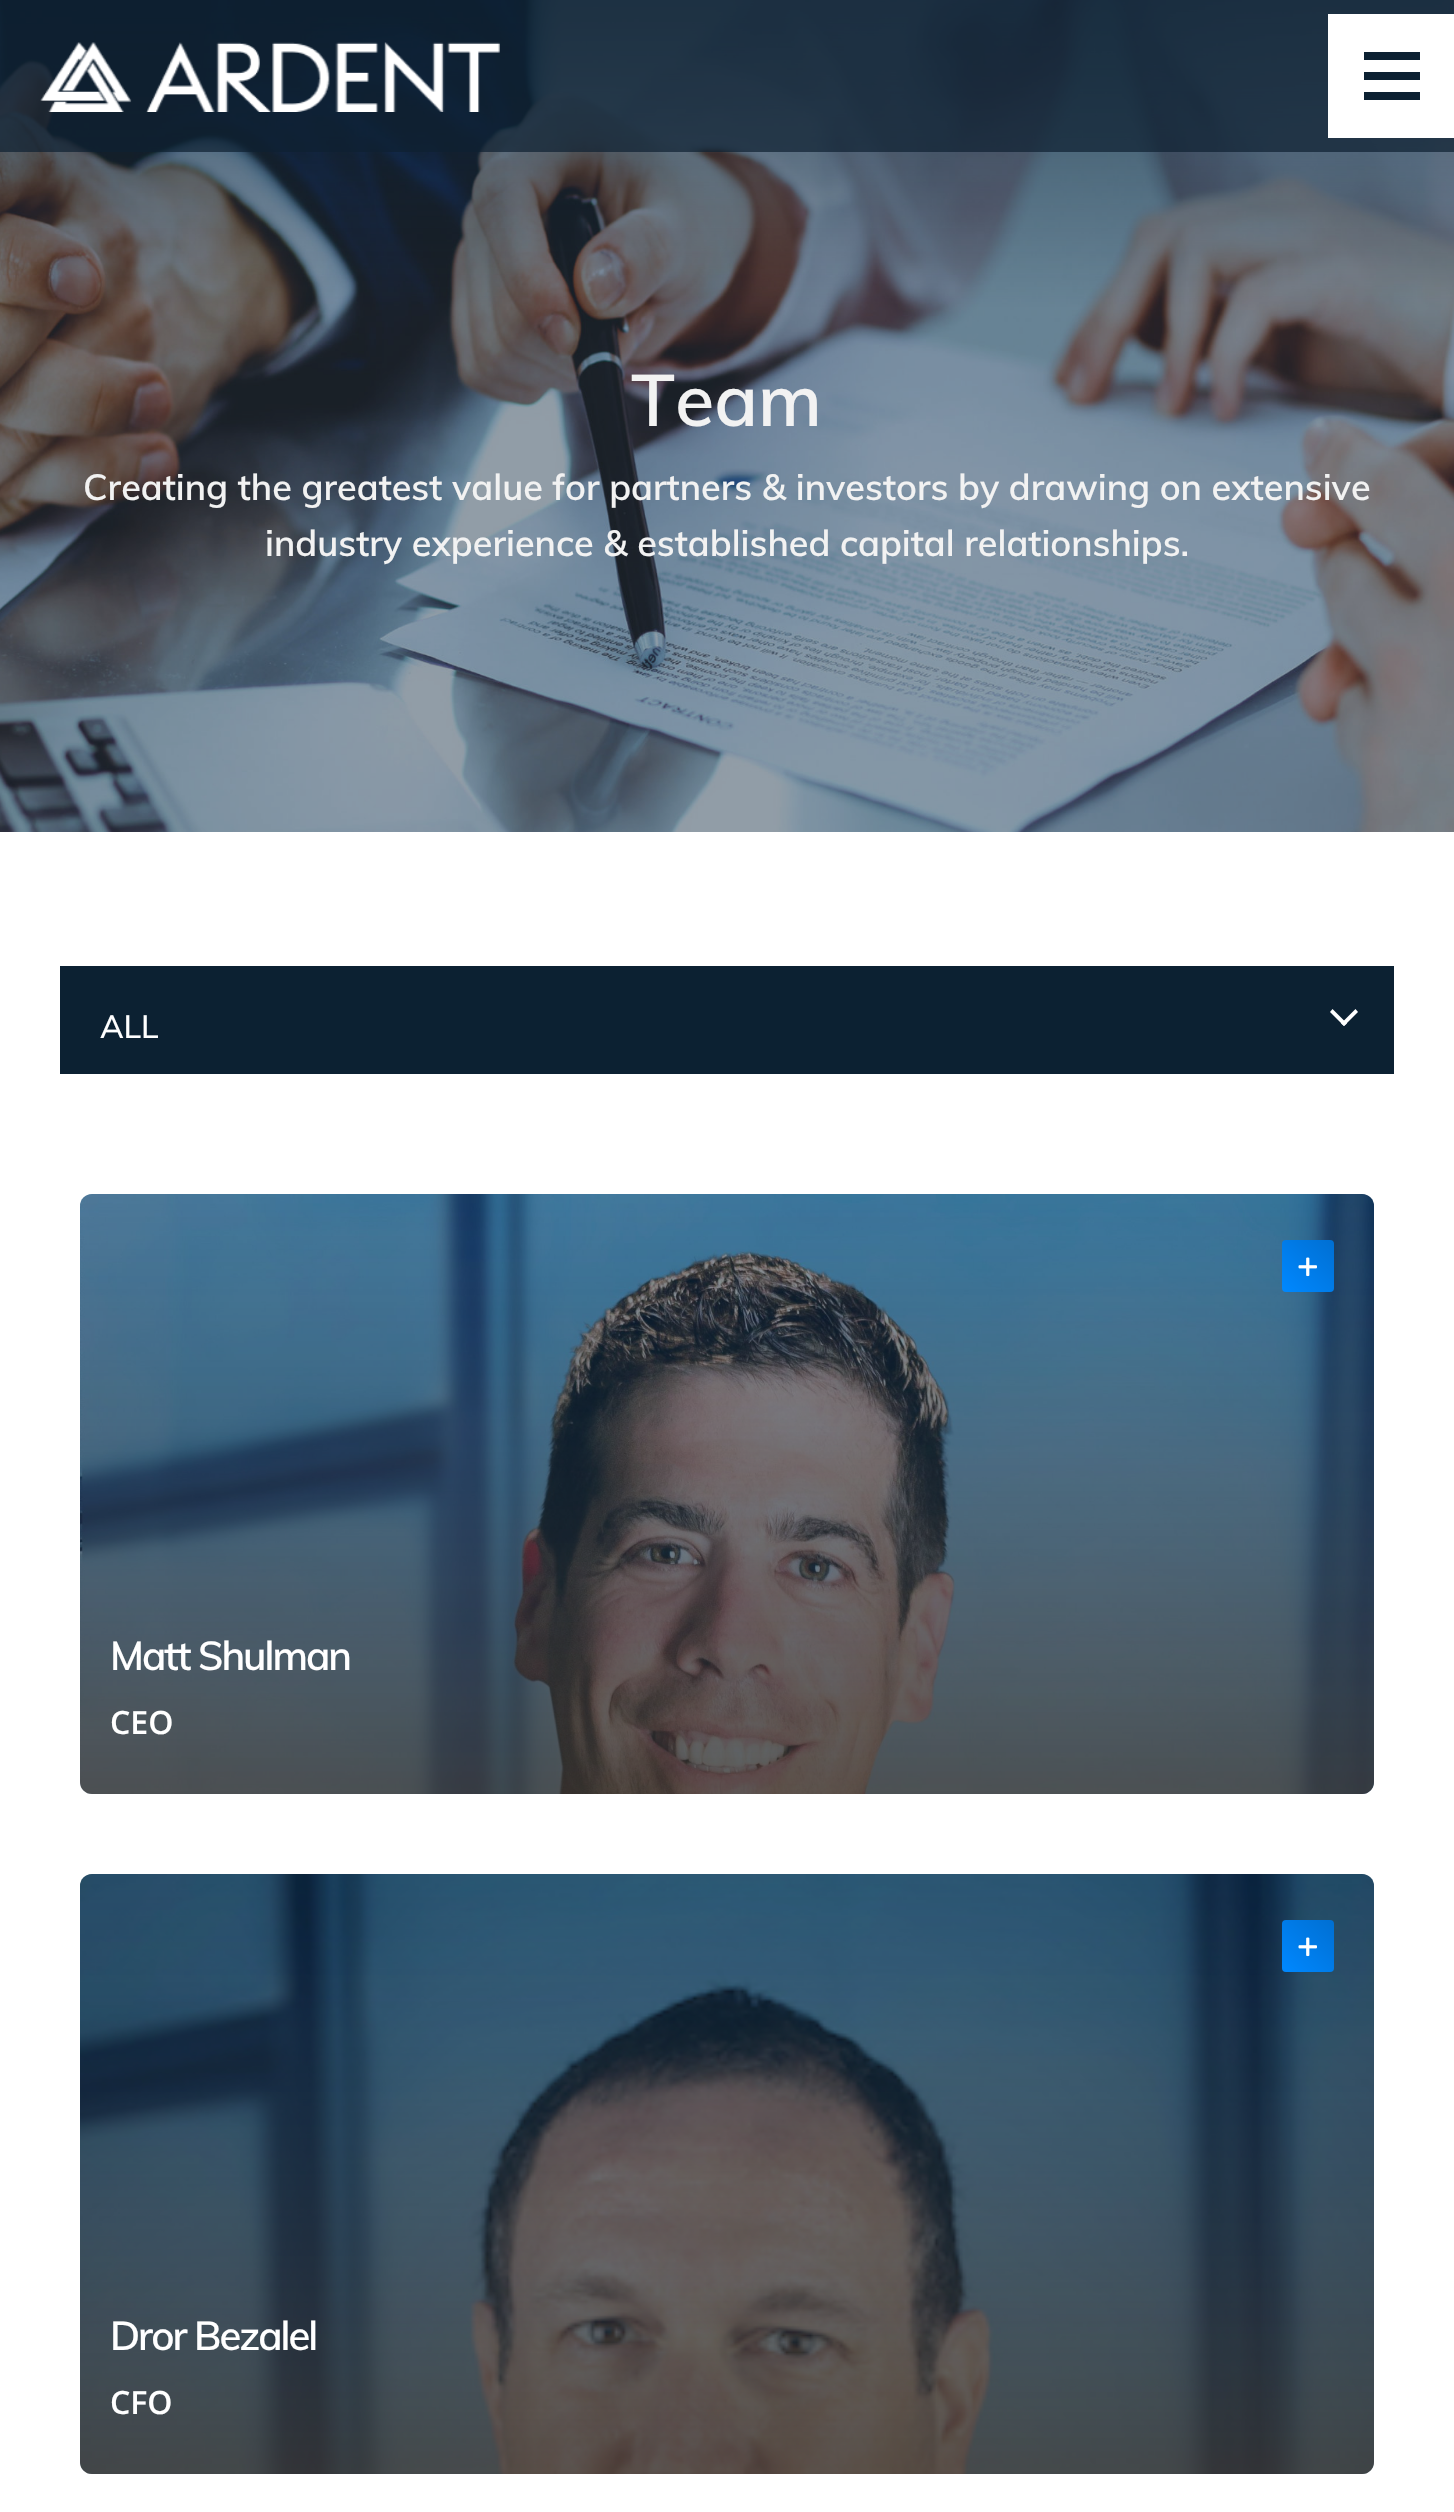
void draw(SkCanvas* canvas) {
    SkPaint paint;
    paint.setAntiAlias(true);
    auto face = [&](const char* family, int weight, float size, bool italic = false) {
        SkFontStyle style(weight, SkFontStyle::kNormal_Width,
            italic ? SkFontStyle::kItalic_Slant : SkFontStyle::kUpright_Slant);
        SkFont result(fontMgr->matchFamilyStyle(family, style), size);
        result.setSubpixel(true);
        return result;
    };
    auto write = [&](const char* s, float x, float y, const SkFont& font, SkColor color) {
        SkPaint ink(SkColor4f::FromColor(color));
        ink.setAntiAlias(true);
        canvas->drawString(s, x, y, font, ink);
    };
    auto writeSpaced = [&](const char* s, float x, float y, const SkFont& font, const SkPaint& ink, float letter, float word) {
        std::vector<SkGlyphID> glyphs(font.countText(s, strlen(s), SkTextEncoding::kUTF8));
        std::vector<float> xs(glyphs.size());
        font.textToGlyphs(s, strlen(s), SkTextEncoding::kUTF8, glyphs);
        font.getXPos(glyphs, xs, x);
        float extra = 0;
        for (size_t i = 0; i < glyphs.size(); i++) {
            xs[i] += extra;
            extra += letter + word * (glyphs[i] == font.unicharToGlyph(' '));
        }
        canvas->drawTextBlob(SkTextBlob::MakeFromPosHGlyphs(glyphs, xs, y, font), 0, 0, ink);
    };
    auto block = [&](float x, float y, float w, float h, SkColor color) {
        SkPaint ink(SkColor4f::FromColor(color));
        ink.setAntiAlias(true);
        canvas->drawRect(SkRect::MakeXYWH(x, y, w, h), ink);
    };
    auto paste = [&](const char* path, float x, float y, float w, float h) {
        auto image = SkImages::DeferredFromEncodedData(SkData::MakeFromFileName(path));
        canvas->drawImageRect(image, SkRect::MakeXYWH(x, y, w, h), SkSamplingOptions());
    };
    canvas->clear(SK_ColorWHITE);
    paste("pic2.png", 0, 0, 1454, 832);
    block(0, 0, 1454, 152, SkColorSetARGB(179, 13, 32, 49));
    paste("pic1.png", 40, 42, 460, 70);
    block(1328, 14, 126, 124, SK_ColorWHITE);
    block(1364, 52, 56, 8, SkColorSetRGB(12, 33, 50));
    block(1364, 72, 56, 8, SkColorSetRGB(12, 33, 50));
    block(1364, 92, 56, 8, SkColorSetRGB(12, 33, 50));
    auto kFont1 = face("Muli", 600, 72);
    write("Team", 631, 426, kFont1, SkColorSetRGB(242, 242, 242));
    auto kFont2 = face("Muli", 600, 36);
    write("Creating the greatest value for partners & investors by drawing on extensive", 83, 500, kFont2, SkColorSetRGB(242, 242, 242));
    write("industry experience & established capital relationships.", 265, 556, kFont2, SkColorSetRGB(242, 242, 242));
    block(60, 966, 1334, 108, SkColorSetRGB(12, 33, 50));
    auto kFont3 = face("Muli", 500, 32);
    write("ALL", 100, 1038, kFont3, SK_ColorWHITE);
    paint.setColor(SK_ColorWHITE);
    canvas->drawPath(SkPathBuilder().moveTo(1355.5f, 1009).lineTo(1358, 1012).lineTo(1344, 1026).lineTo(1341, 1023.5f).close().detach(), paint);
    canvas->drawPath(SkPathBuilder().moveTo(1332.5f, 1009).lineTo(1347, 1023.5f).lineTo(1344, 1026).lineTo(1330, 1012).close().detach(), paint);
    paste("pic3.png", 80, 1194, 1294, 600);
    {
        const SkColor colors[] = {SkColorSetARGB(204, 51, 51, 51), SkColorSetARGB(112, 0, 49, 91)};
        const float stops[] = {0, 1};
        const SkPoint ends[] = {{727, 1794}, {727, 1194}};
        paint.setShader(SkGradientShader::MakeLinear(ends, colors, stops, 2, SkTileMode::kClamp));
        paint.setAlpha(255);
    }
    canvas->drawRoundRect(SkRect::MakeXYWH(80, 1194, 1294, 600), 12, 12, paint);
    {
        const SkColor colors[] = {SkColorSetRGB(0, 111, 210), SkColorSetRGB(0, 136, 255)};
        const float stops[] = {0, 0.99f};
        const SkPoint ends[] = {{1334, 1240}, {1282, 1292}};
        paint.setShader(SkGradientShader::MakeLinear(ends, colors, stops, 2, SkTileMode::kClamp));
        paint.setAlpha(255);
    }
    canvas->drawRoundRect(SkRect::MakeXYWH(1282, 1240, 52, 52), 4, 4, paint);
    paste("pic4.png", 1298, 1257, 19, 20);
    auto kFont4 = face("Muli", 600, 40);
    paint.setShader(nullptr);
    paint.setColor(SK_ColorWHITE);
    writeSpaced("Matt Shulman", 110, 1670, kFont4, paint, -2, 0);
    auto kFont5 = face("Open Sans", 600, 32);
    write("CEO", 110, 1734, kFont5, SK_ColorWHITE);
    paste("pic5.png", 80, 1874, 1294, 600);
    {
        const SkColor colors[] = {SkColorSetARGB(204, 51, 51, 51), SkColorSetARGB(112, 0, 49, 91)};
        const float stops[] = {0, 1};
        const SkPoint ends[] = {{727, 2474}, {727, 1874}};
        paint.setShader(SkGradientShader::MakeLinear(ends, colors, stops, 2, SkTileMode::kClamp));
        paint.setAlpha(255);
    }
    canvas->drawRoundRect(SkRect::MakeXYWH(80, 1874, 1294, 600), 12, 12, paint);
    {
        const SkColor colors[] = {SkColorSetRGB(0, 111, 210), SkColorSetRGB(0, 136, 255)};
        const float stops[] = {0, 0.99f};
        const SkPoint ends[] = {{1334, 1920}, {1282, 1972}};
        paint.setShader(SkGradientShader::MakeLinear(ends, colors, stops, 2, SkTileMode::kClamp));
        paint.setAlpha(255);
    }
    canvas->drawRoundRect(SkRect::MakeXYWH(1282, 1920, 52, 52), 4, 4, paint);
    paste("pic4.png", 1298, 1937, 19, 20);
    paint.setShader(nullptr);
    paint.setColor(SK_ColorWHITE);
    writeSpaced("Dror Bezalel", 110, 2350, kFont4, paint, -2, 0);
    write("CFO", 110, 2414, kFont5, SK_ColorWHITE);
}
